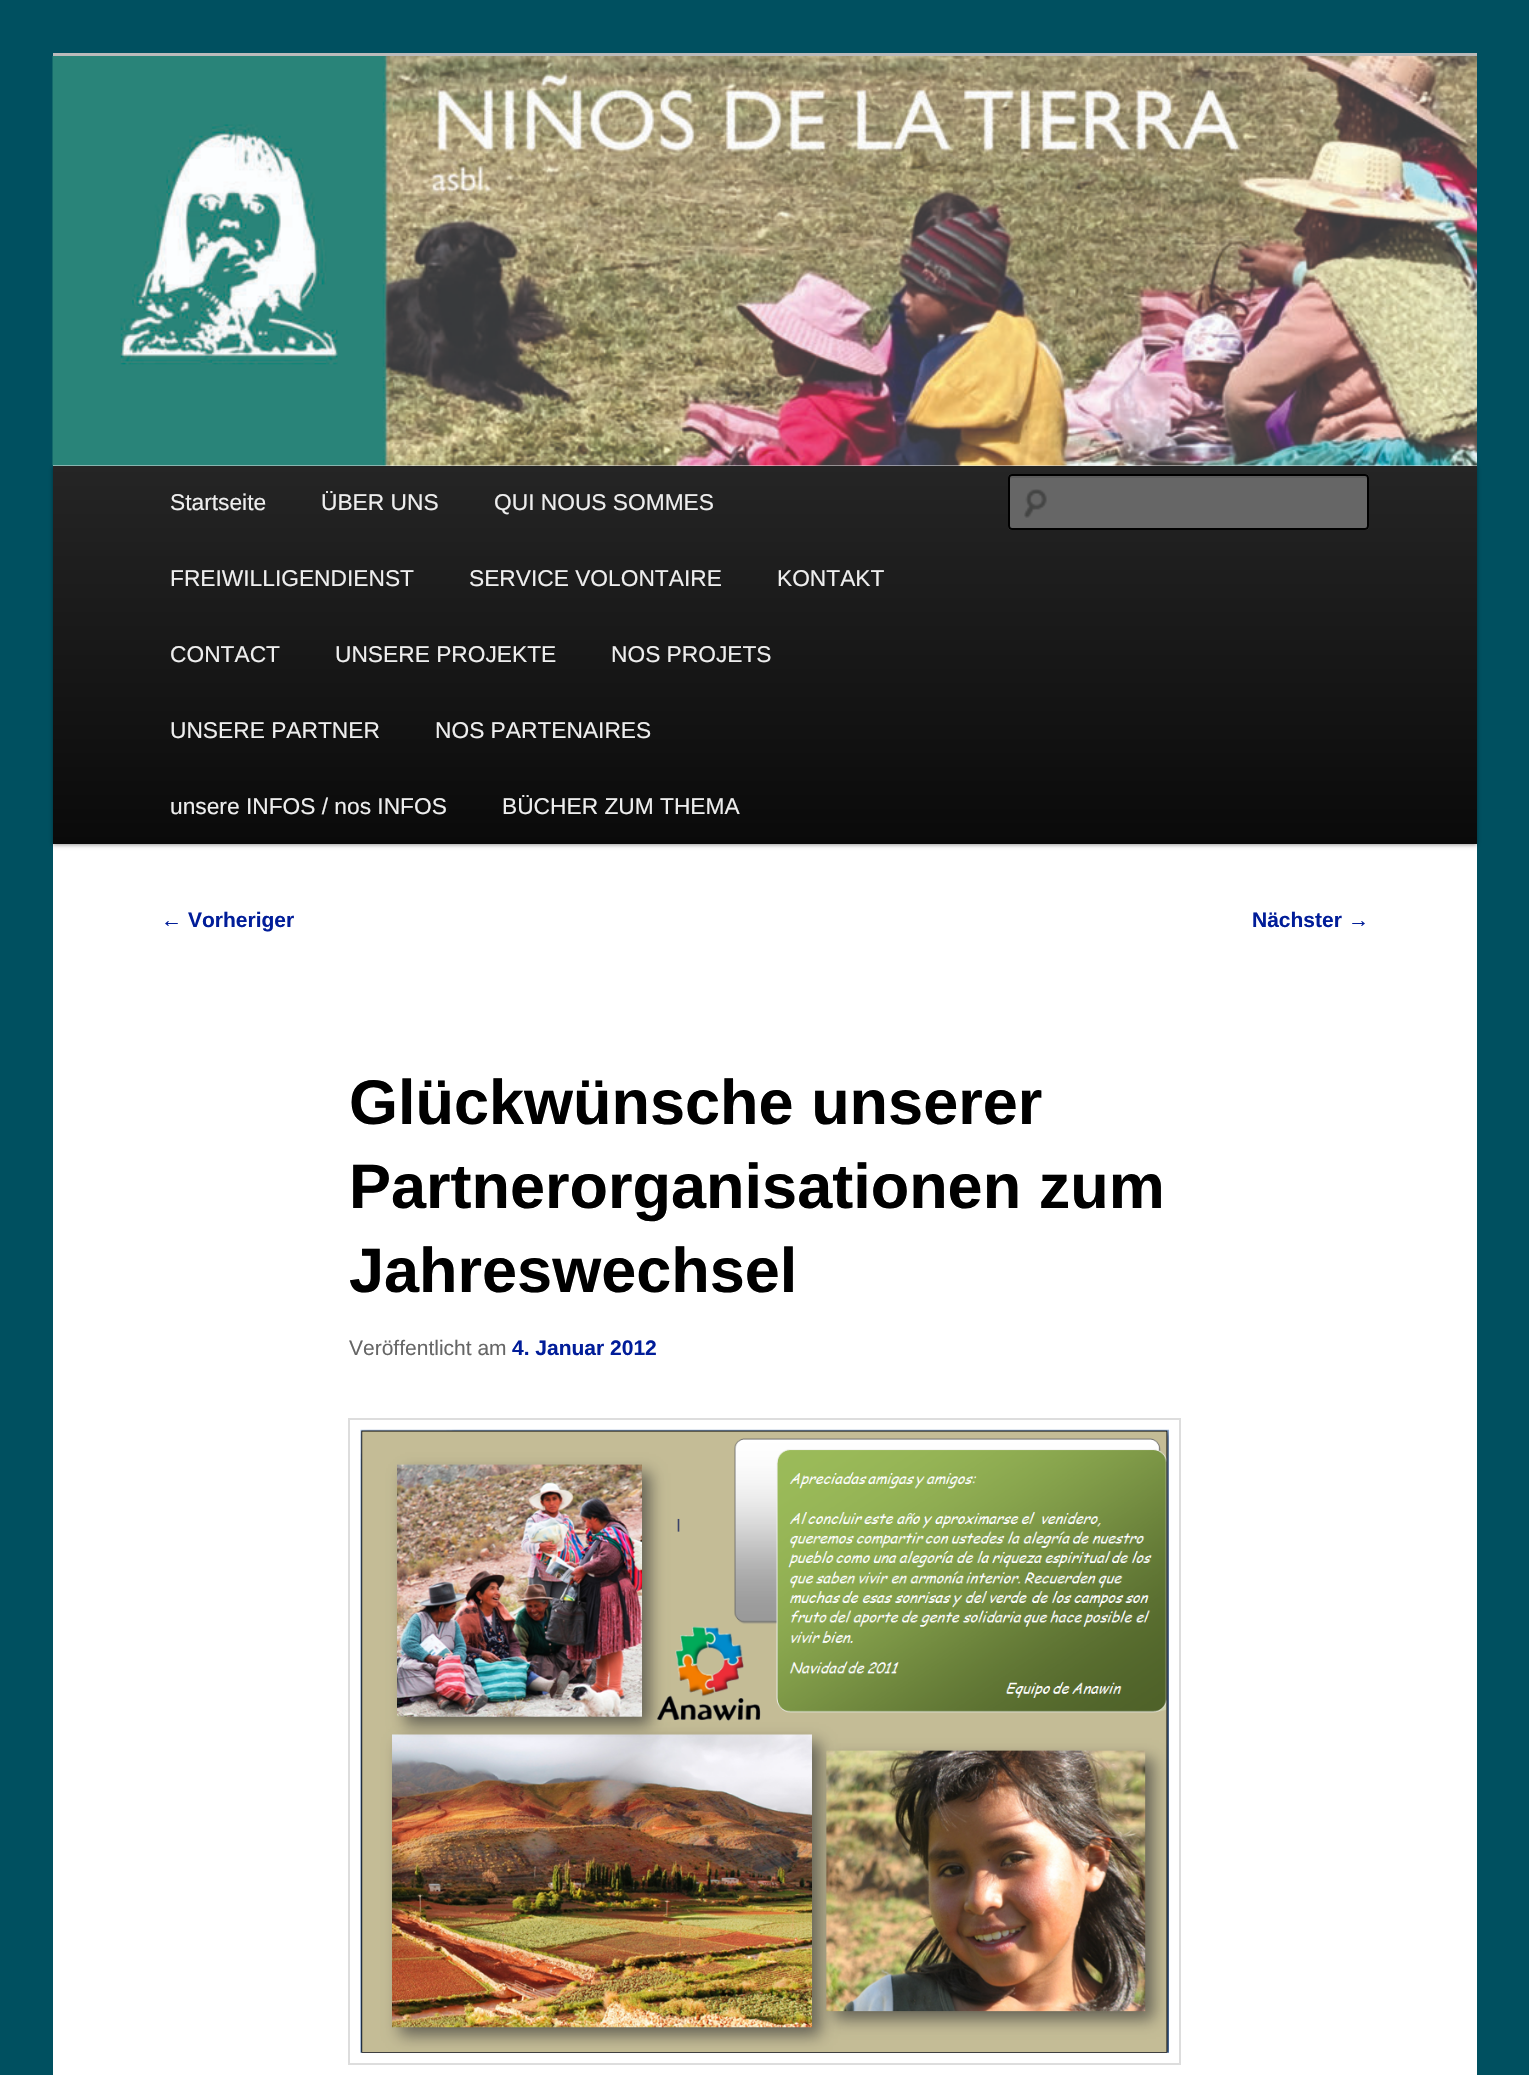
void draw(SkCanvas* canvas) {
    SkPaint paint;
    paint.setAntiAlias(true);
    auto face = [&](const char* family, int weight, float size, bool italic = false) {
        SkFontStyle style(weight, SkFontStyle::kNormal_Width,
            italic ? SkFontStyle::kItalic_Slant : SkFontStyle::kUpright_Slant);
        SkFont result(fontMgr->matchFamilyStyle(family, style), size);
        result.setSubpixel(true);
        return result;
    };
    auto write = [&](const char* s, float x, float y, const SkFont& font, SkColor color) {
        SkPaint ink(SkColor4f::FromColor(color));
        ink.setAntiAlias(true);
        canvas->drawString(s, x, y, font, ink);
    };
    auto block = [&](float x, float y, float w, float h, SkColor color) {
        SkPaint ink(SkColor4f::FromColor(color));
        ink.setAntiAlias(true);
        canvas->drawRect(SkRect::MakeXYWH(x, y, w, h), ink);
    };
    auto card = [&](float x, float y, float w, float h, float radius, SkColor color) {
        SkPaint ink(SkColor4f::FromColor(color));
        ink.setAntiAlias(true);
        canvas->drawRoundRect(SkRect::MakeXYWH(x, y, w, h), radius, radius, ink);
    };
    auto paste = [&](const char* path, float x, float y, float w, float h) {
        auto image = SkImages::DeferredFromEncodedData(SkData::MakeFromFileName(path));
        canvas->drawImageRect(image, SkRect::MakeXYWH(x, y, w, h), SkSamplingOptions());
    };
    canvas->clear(SkColorSetRGB(0, 80, 96));
    block(53, 465, 1424, 1610, SK_ColorWHITE);
    block(53, 53, 1424, 3, SkColorSetRGB(187, 187, 187));
    paint.setColor(SkColorSetARGB(102, 0, 0, 0));
    paint.setMaskFilter(SkMaskFilter::MakeBlur(kNormal_SkBlurStyle, 2));
    canvas->drawRect(SkRect::MakeXYWH(53, 467, 1424, 378), paint);
    paint.setMaskFilter(nullptr);
    paste("pic1.png", 52, 56, 1425, 410);
    {
        const SkColor colors[] = {SkColorSetRGB(37, 37, 37), SkColorSetRGB(10, 10, 10)};
        const float stops[] = {0, 1};
        const SkPoint ends[] = {{765, 465}, {765, 844}};
        paint.setShader(SkGradientShader::MakeLinear(ends, colors, stops, 2, SkTileMode::kClamp));
        paint.setAlpha(255);
    }
    canvas->drawRect(SkRect::MakeXYWH(53, 466, 1424, 378), paint);
    auto kFont1 = face("Liberation Sans", 400, 22.75f);
    write("Startseite", 170, 510, kFont1, SkColorSetRGB(238, 238, 238));
    write("ÜBER UNS", 321, 510, kFont1, SkColorSetRGB(238, 238, 238));
    write("QUI NOUS SOMMES", 494, 510, kFont1, SkColorSetRGB(238, 238, 238));
    write("FREIWILLIGENDIENST", 170, 586, kFont1, SkColorSetRGB(238, 238, 238));
    write("SERVICE VOLONTAIRE", 469, 586, kFont1, SkColorSetRGB(238, 238, 238));
    write("KONTAKT", 777, 586, kFont1, SkColorSetRGB(238, 238, 238));
    write("CONTACT", 170, 662, kFont1, SkColorSetRGB(238, 238, 238));
    write("UNSERE PROJEKTE", 335, 662, kFont1, SkColorSetRGB(238, 238, 238));
    write("NOS PROJETS", 611, 662, kFont1, SkColorSetRGB(238, 238, 238));
    write("UNSERE PARTNER", 170, 738, kFont1, SkColorSetRGB(238, 238, 238));
    write("NOS PARTENAIRES", 435, 738, kFont1, SkColorSetRGB(238, 238, 238));
    write("unsere INFOS / nos INFOS", 170, 814, kFont1, SkColorSetRGB(238, 238, 238));
    write("BÜCHER ZUM THEMA", 502, 814, kFont1, SkColorSetRGB(238, 238, 238));
    card(1008, 474, 361, 56, 4, SkColorSetRGB(102, 102, 102));
    paste("pic2.png", 1024, 489, 23, 29);
    paint.setShader(nullptr);
    paint.setColor(SkColorSetRGB(92, 92, 92));
    canvas->drawPath(SkPathBuilder().moveTo(1012, 478).lineTo(1365, 478).cubicTo(1366, 478, 1367, 479, 1367, 480).lineTo(1367, 478).cubicTo(1367, 477, 1366, 476, 1365, 476).lineTo(1012, 476).cubicTo(1011, 476, 1010, 477, 1010, 478).lineTo(1010, 480).cubicTo(1010, 479, 1011, 478, 1012, 478).close().detach(), paint);
    paint.setStyle(SkPaint::kStroke_Style);
    paint.setStrokeWidth(2);
    paint.setColor(SK_ColorBLACK);
    canvas->drawRoundRect(SkRect::MakeXYWH(1009, 475, 359, 54), 3, 3, paint);
    auto kFont2 = face("Liberation Sans", 400, 21);
    write("←", 161, 927, kFont2, SkColorSetRGB(1, 29, 153));
    auto kFont3 = face("Liberation Sans", 700, 21);
    write("Vorheriger", 188, 927, kFont3, SkColorSetRGB(1, 29, 153));
    write("Nächster", 1252, 927, kFont3, SkColorSetRGB(1, 29, 153));
    write("→", 1348, 927, kFont2, SkColorSetRGB(1, 29, 153));
    auto kFont4 = face("Liberation Sans", 700, 63);
    write("Glückwünsche unserer", 349, 1124, kFont4, SK_ColorBLACK);
    write("Partnerorganisationen zum", 349, 1208, kFont4, SK_ColorBLACK);
    write("Jahreswechsel", 349, 1292, kFont4, SK_ColorBLACK);
    write("Veröffentlicht am", 349, 1355, kFont2, SkColorSetRGB(102, 102, 102));
    write("4. Januar 2012", 512, 1355, kFont3, SkColorSetRGB(1, 29, 153));
    paint.setColor(SkColorSetRGB(221, 221, 221));
    canvas->drawRect(SkRect::MakeXYWH(349, 1419, 831, 645), paint);
    paste("pic3.png", 360, 1429, 809, 624);
}
